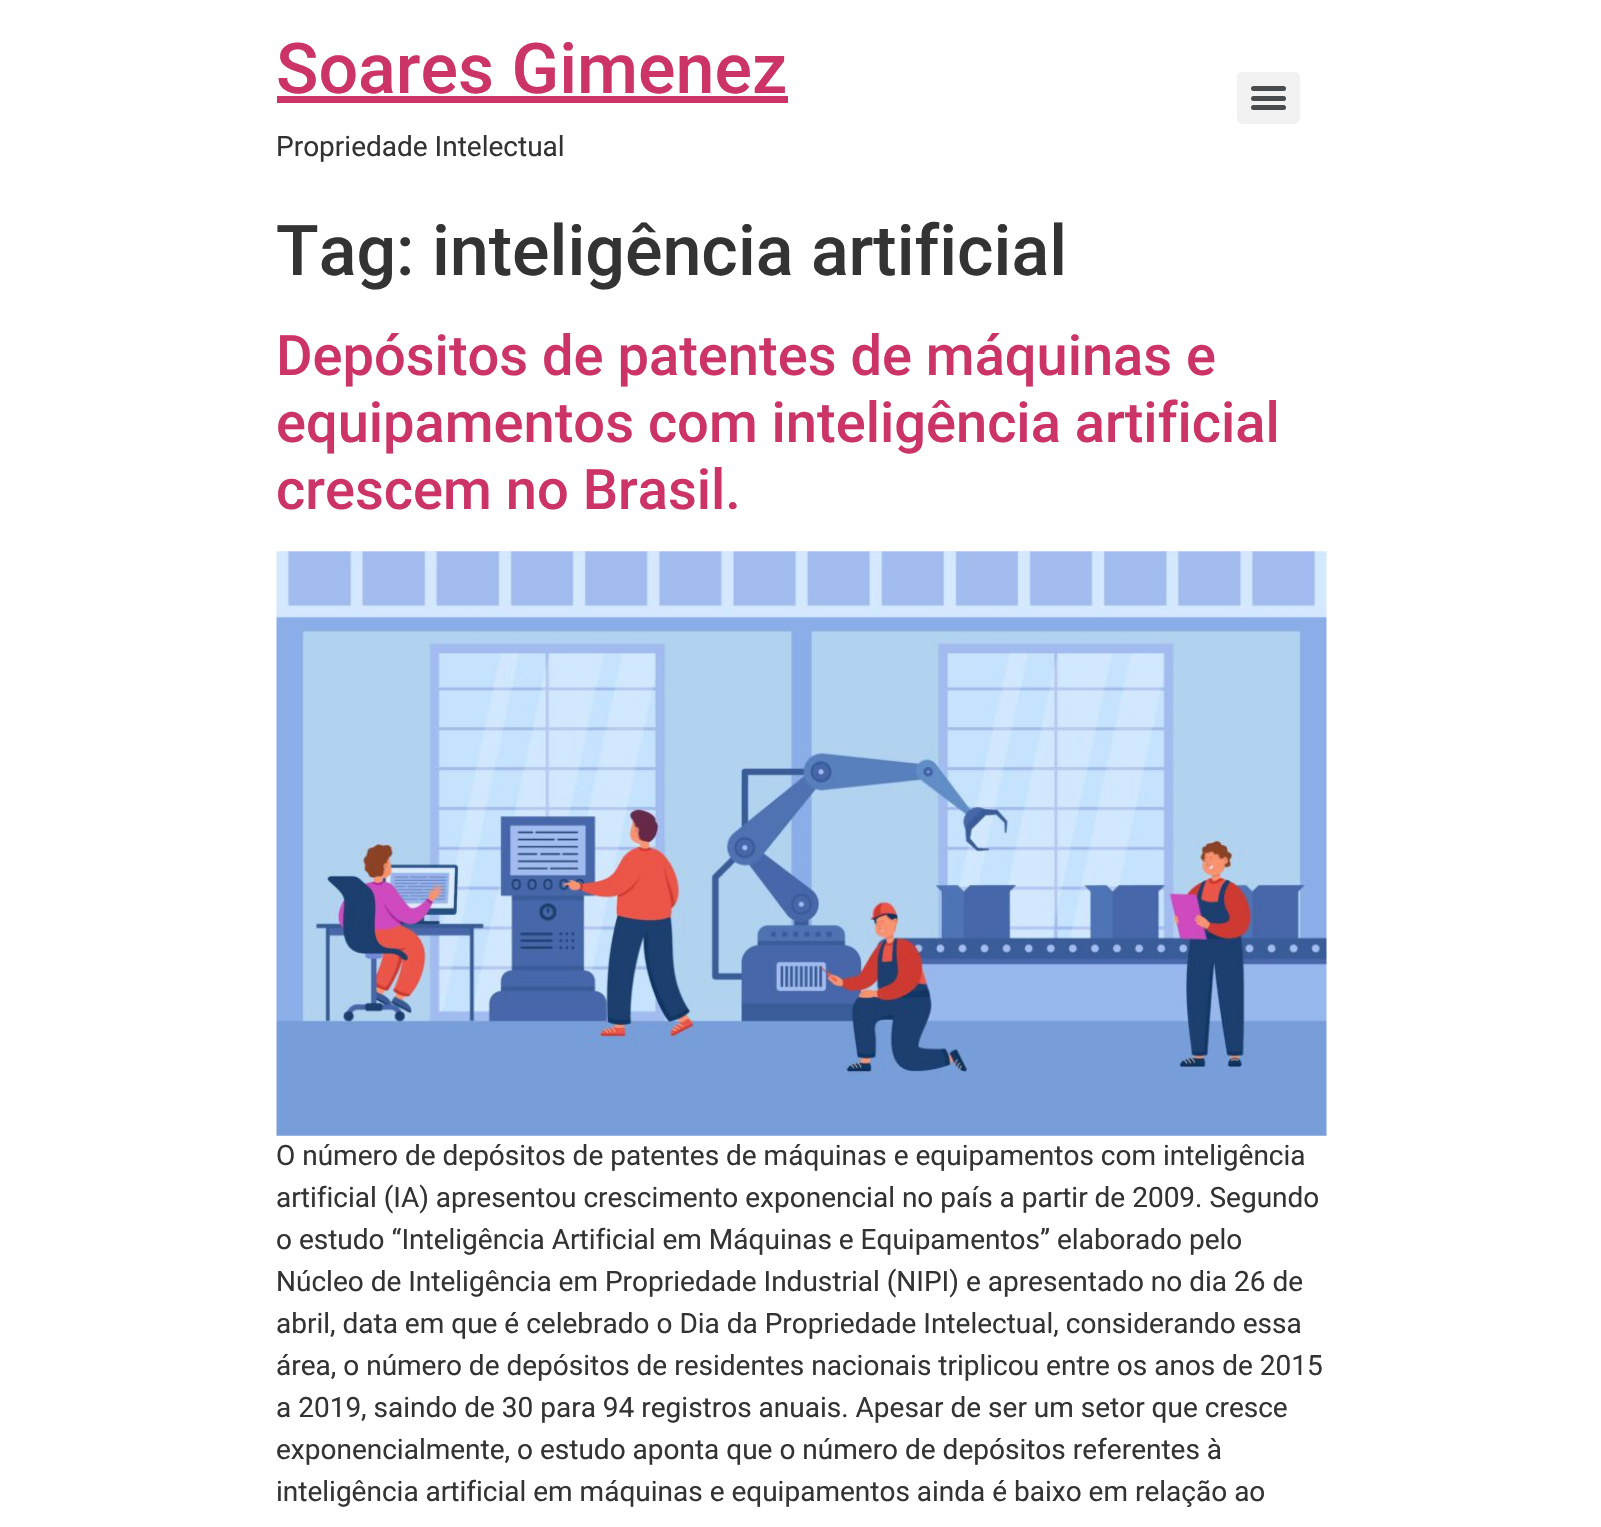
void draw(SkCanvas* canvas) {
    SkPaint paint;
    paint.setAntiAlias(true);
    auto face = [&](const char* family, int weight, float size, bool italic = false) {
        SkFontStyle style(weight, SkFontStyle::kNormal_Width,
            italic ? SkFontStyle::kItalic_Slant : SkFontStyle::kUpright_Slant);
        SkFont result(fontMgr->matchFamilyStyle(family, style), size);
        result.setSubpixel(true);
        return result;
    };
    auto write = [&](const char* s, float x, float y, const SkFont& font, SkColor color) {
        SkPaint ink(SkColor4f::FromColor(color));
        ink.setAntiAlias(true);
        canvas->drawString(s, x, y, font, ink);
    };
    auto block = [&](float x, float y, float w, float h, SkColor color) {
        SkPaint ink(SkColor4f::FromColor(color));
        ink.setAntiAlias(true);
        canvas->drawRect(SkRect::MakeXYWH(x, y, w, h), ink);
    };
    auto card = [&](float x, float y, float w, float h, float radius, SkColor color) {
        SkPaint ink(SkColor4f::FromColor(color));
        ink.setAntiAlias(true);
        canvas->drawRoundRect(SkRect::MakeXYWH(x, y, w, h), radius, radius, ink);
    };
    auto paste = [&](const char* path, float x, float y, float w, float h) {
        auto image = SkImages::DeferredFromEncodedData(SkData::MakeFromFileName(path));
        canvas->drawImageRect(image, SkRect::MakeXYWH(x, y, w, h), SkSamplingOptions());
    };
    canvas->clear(SK_ColorWHITE);
    auto kFont1 = face("Roboto", 500, 70);
    write("Soares Gimenez", 276, 93, kFont1, SkColorSetRGB(204, 51, 102));
    block(277, 96, 511, 7, SkColorSetRGB(204, 51, 102));
    auto kFont2 = face("Roboto", 400, 28);
    write("Propriedade Intelectual", 276, 156, kFont2, SkColorSetRGB(51, 51, 51));
    card(1237, 72, 63, 52, 5, SkColorSetRGB(242, 242, 242));
    card(1251, 96, 35, 5, 2.5f, SkColorSetRGB(73, 76, 79));
    card(1251, 86, 35, 5, 2.5f, SkColorSetRGB(73, 76, 79));
    card(1251, 105, 35, 5, 2.5f, SkColorSetRGB(73, 76, 79));
    write("Tag: inteligência artificial", 276, 275, kFont1, SkColorSetRGB(51, 51, 51));
    auto kFont3 = face("Roboto", 500, 56);
    write("Depósitos de patentes de máquinas e", 276, 375, kFont3, SkColorSetRGB(204, 51, 102));
    write("equipamentos com inteligência artificial", 276, 442, kFont3, SkColorSetRGB(204, 51, 102));
    write("crescem no Brasil.", 276, 509, kFont3, SkColorSetRGB(204, 51, 102));
    paste("pic1.png", 276, 551, 1051, 585);
    write("O número de depósitos de patentes de máquinas e equipamentos com inteligência", 276, 1165, kFont2, SkColorSetRGB(51, 51, 51));
    write("artificial (IA) apresentou crescimento exponencial no país a partir de 2009. Segundo", 276, 1207, kFont2, SkColorSetRGB(51, 51, 51));
    write("o estudo “Inteligência Artificial em Máquinas e Equipamentos” elaborado pelo", 276, 1249, kFont2, SkColorSetRGB(51, 51, 51));
    write("Núcleo de Inteligência em Propriedade Industrial (NIPI) e apresentado no dia 26 de", 276, 1291, kFont2, SkColorSetRGB(51, 51, 51));
    write("abril, data em que é celebrado o Dia da Propriedade Intelectual, considerando essa", 276, 1333, kFont2, SkColorSetRGB(51, 51, 51));
    write("área, o número de depósitos de residentes nacionais triplicou entre os anos de 2015", 276, 1375, kFont2, SkColorSetRGB(51, 51, 51));
    write("a 2019, saindo de 30 para 94 registros anuais. Apesar de ser um setor que cresce", 276, 1417, kFont2, SkColorSetRGB(51, 51, 51));
    write("exponencialmente, o estudo aponta que o número de depósitos referentes à", 276, 1459, kFont2, SkColorSetRGB(51, 51, 51));
    write("inteligência artificial em máquinas e equipamentos ainda é baixo em relação ao", 276, 1501, kFont2, SkColorSetRGB(51, 51, 51));
}
